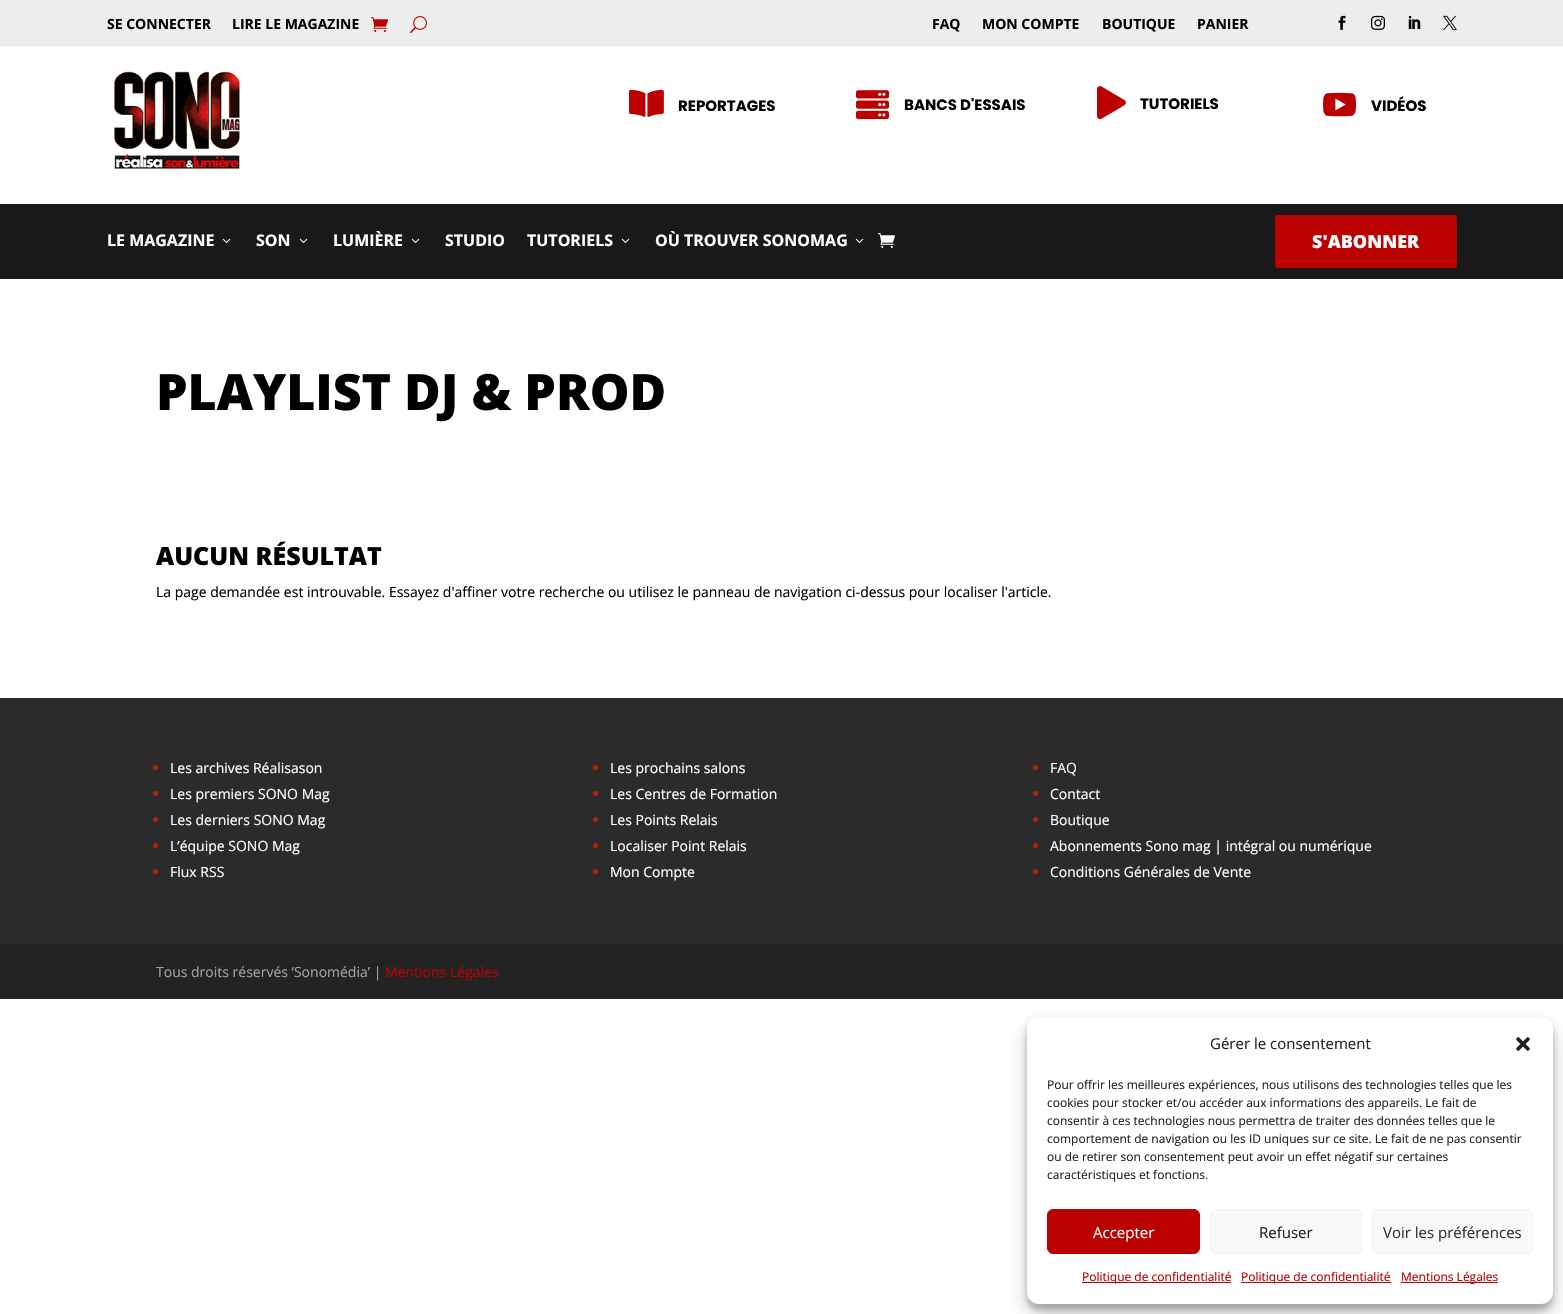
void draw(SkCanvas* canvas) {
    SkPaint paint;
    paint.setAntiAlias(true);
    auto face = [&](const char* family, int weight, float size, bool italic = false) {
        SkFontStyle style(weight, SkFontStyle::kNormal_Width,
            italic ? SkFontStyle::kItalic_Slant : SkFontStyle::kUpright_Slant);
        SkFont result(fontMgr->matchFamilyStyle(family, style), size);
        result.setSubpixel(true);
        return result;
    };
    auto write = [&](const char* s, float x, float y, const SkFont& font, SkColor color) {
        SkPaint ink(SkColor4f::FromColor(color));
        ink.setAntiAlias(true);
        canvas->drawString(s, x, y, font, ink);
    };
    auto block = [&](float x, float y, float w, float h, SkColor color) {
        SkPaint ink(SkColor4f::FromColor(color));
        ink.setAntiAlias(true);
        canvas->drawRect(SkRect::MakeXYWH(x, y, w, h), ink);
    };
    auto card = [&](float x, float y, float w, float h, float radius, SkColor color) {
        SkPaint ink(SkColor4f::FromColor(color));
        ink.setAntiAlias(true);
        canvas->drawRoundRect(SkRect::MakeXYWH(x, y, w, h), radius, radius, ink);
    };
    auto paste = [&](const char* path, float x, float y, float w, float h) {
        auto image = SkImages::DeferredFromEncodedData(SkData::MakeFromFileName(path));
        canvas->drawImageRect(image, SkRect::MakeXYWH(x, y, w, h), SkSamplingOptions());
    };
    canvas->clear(SK_ColorWHITE);
    block(0, 0, 1563, 45, SkColorSetRGB(237, 237, 237));
    block(0, 45, 1563, 1, SkColorSetRGB(229, 229, 229));
    auto kFont1 = face("Open Sans", 700, 14);
    write("SE CONNECTER", 107, 29, kFont1, SK_ColorBLACK);
    write("LIRE LE MAGAZINE", 232, 29, kFont1, SK_ColorBLACK);
    paste("pic1.png", 371, 17, 17, 15);
    paste("pic2.png", 410, 16, 17, 18);
    write("FAQ", 932, 29, kFont1, SK_ColorBLACK);
    write("MON COMPTE", 982, 29, kFont1, SK_ColorBLACK);
    write("BOUTIQUE", 1102, 29, kFont1, SK_ColorBLACK);
    write("PANIER", 1197, 29, kFont1, SK_ColorBLACK);
    paste("pic3.png", 1338, 15, 8, 15);
    paste("pic4.png", 1371, 15, 14, 15);
    paste("pic5.png", 1408, 15, 13, 14);
    paste("pic6.png", 1443, 15, 14, 15);
    paste("pic7.png", 114, 71, 126, 98);
    paste("pic8.png", 629, 89, 35, 28);
    auto kFont2 = face("Poppins", 700, 15);
    write("REPORTAGES", 678, 111, kFont2, SK_ColorBLACK);
    paste("pic9.png", 856, 90, 33, 30);
    write("BANCS D'ESSAIS", 904, 110, kFont2, SK_ColorBLACK);
    paste("pic10.png", 1097, 86, 29, 34);
    write("TUTORIELS", 1140, 109, kFont2, SK_ColorBLACK);
    paste("pic11.png", 1323, 92, 33, 25);
    write("VIDÉOS", 1371, 111, kFont2, SK_ColorBLACK);
    block(0, 204, 1563, 75, SkColorSetRGB(25, 25, 25));
    auto kFont3 = face("Open Sans", 700, 16);
    write("LE MAGAZINE", 107, 246, kFont3, SK_ColorWHITE);
    paste("pic12.png", 222, 238, 9, 5);
    write("SON", 256, 246, kFont3, SK_ColorWHITE);
    paste("pic12.png", 299, 238, 9, 5);
    write("LUMIÈRE", 333, 246, kFont3, SK_ColorWHITE);
    paste("pic12.png", 411, 238, 9, 5);
    write("STUDIO", 445, 246, kFont3, SK_ColorWHITE);
    write("TUTORIELS", 527, 246, kFont3, SK_ColorWHITE);
    paste("pic12.png", 621, 238, 9, 5);
    write("OÙ TROUVER SONOMAG", 655, 246, kFont3, SK_ColorWHITE);
    paste("pic12.png", 855, 238, 9, 5);
    paste("pic13.png", 878, 233, 17, 15);
    card(1275, 215, 182, 53, 2, SkColorSetRGB(187, 0, 0));
    auto kFont4 = face("Open Sans", 800, 18);
    write("S'ABONNER", 1312, 248, kFont4, SK_ColorWHITE);
    auto kFont5 = face("Open Sans", 800, 50);
    write("PLAYLIST DJ & PROD", 156, 410, kFont5, SK_ColorBLACK);
    auto kFont6 = face("Open Sans", 800, 25);
    write("AUCUN RÉSULTAT", 156, 565, kFont6, SK_ColorBLACK);
    auto kFont7 = face("Open Sans", 400, 14);
    write("La page demandée est introuvable. Essayez d'affiner votre recherche ou utilisez le panneau de navigation ci-dessus pour localiser l'article.", 156, 597, kFont7, SK_ColorBLACK);
    block(0, 698, 1563, 246, SkColorSetRGB(43, 43, 43));
    paint.setColor(SkColorSetRGB(187, 32, 0));
    canvas->drawCircle(155.5f, 767.5f, 2.5f, paint);
    write("Les archives Réalisason", 170, 773, kFont7, SK_ColorWHITE);
    canvas->drawCircle(155.5f, 793.5f, 2.5f, paint);
    write("Les premiers SONO Mag", 170, 799, kFont7, SK_ColorWHITE);
    canvas->drawCircle(155.5f, 819.5f, 2.5f, paint);
    write("Les derniers SONO Mag", 170, 825, kFont7, SK_ColorWHITE);
    canvas->drawCircle(155.5f, 845.5f, 2.5f, paint);
    write("L’équipe SONO Mag", 170, 851, kFont7, SK_ColorWHITE);
    canvas->drawCircle(155.5f, 871.5f, 2.5f, paint);
    write("Flux RSS", 170, 877, kFont7, SK_ColorWHITE);
    canvas->drawCircle(595.5f, 767.5f, 2.5f, paint);
    write("Les prochains salons", 610, 773, kFont7, SK_ColorWHITE);
    canvas->drawCircle(595.5f, 793.5f, 2.5f, paint);
    write("Les Centres de Formation", 610, 799, kFont7, SK_ColorWHITE);
    canvas->drawCircle(595.5f, 819.5f, 2.5f, paint);
    write("Les Points Relais", 610, 825, kFont7, SK_ColorWHITE);
    canvas->drawCircle(595.5f, 845.5f, 2.5f, paint);
    write("Localiser Point Relais", 610, 851, kFont7, SK_ColorWHITE);
    canvas->drawCircle(595.5f, 871.5f, 2.5f, paint);
    write("Mon Compte", 610, 877, kFont7, SK_ColorWHITE);
    canvas->drawCircle(1035.5f, 767.5f, 2.5f, paint);
    write("FAQ", 1050, 773, kFont7, SK_ColorWHITE);
    canvas->drawCircle(1035.5f, 793.5f, 2.5f, paint);
    write("Contact", 1050, 799, kFont7, SK_ColorWHITE);
    canvas->drawCircle(1035.5f, 819.5f, 2.5f, paint);
    write("Boutique", 1050, 825, kFont7, SK_ColorWHITE);
    canvas->drawCircle(1035.5f, 845.5f, 2.5f, paint);
    write("Abonnements Sono mag | intégral ou numérique", 1050, 851, kFont7, SK_ColorWHITE);
    canvas->drawCircle(1035.5f, 871.5f, 2.5f, paint);
    write("Conditions Générales de Vente", 1050, 877, kFont7, SK_ColorWHITE);
    block(0, 944, 1563, 55, SkColorSetRGB(35, 35, 35));
    write("Tous droits réservés ‘Sonomédia’ |", 156, 977, kFont7, SkColorSetRGB(163, 163, 163));
    write("Mentions Légales", 385, 977, kFont7, SkColorSetRGB(187, 0, 0));
    paint.setColor(SkColorSetARGB(59, 0, 0, 0));
    paint.setMaskFilter(SkMaskFilter::MakeBlur(kNormal_SkBlurStyle, 3));
    canvas->drawRoundRect(SkRect::MakeXYWH(1027, 1023, 526, 287), 12, 12, paint);
    paint.setMaskFilter(nullptr);
    paint.setColor(SkColorSetARGB(48, 0, 0, 0));
    paint.setMaskFilter(SkMaskFilter::MakeBlur(kNormal_SkBlurStyle, 10));
    canvas->drawRoundRect(SkRect::MakeXYWH(1027, 1027, 526, 287), 12, 12, paint);
    paint.setMaskFilter(nullptr);
    card(1027, 1017, 526, 287, 12, SK_ColorWHITE);
    auto kFont8 = face("Open Sans", 400, 15);
    write("Gérer le consentement", 1210, 1049, kFont8, SkColorSetRGB(34, 34, 34));
    paste("pic14.png", 1516, 1037, 14, 14);
    auto kFont9 = face("Open Sans", 400, 12);
    write("Pour offrir les meilleures expériences, nous utilisons des technologies telles que les", 1047, 1089, kFont9, SkColorSetRGB(34, 34, 34));
    write("cookies pour stocker et/ou accéder aux informations des appareils. Le fait de", 1047, 1107, kFont9, SkColorSetRGB(34, 34, 34));
    write("consentir à ces technologies nous permettra de traiter des données telles que le", 1047, 1125, kFont9, SkColorSetRGB(34, 34, 34));
    write("comportement de navigation ou les ID uniques sur ce site. Le fait de ne pas consentir", 1047, 1143, kFont9, SkColorSetRGB(34, 34, 34));
    write("ou de retirer son consentement peut avoir un effet négatif sur certaines", 1047, 1161, kFont9, SkColorSetRGB(34, 34, 34));
    write("caractéristiques et fonctions.", 1047, 1179, kFont9, SkColorSetRGB(34, 34, 34));
    paint.setColor(SkColorSetRGB(187, 0, 0));
    canvas->drawRoundRect(SkRect::MakeXYWH(1047.5f, 1209.5f, 152, 44), 5.5f, 5.5f, paint);
    paint.setStyle(SkPaint::kStroke_Style);
    paint.setStrokeWidth(1);
    canvas->drawRoundRect(SkRect::MakeXYWH(1047.5f, 1209.5f, 152, 44), 5.5f, 5.5f, paint);
    write("Accepter", 1093, 1238, kFont8, SK_ColorWHITE);
    paint.setStyle(SkPaint::kFill_Style);
    paint.setColor(SkColorSetRGB(249, 249, 249));
    canvas->drawRoundRect(SkRect::MakeXYWH(1210.5f, 1209.5f, 151, 44), 5.5f, 5.5f, paint);
    paint.setStyle(SkPaint::kStroke_Style);
    paint.setColor(SkColorSetRGB(242, 242, 242));
    canvas->drawRoundRect(SkRect::MakeXYWH(1210.5f, 1209.5f, 151, 44), 5.5f, 5.5f, paint);
    write("Refuser", 1259, 1238, kFont8, SkColorSetRGB(34, 34, 34));
    paint.setStyle(SkPaint::kFill_Style);
    paint.setColor(SkColorSetRGB(249, 249, 249));
    canvas->drawRoundRect(SkRect::MakeXYWH(1372.5f, 1209.5f, 160, 44), 5.5f, 5.5f, paint);
    paint.setStyle(SkPaint::kStroke_Style);
    paint.setColor(SkColorSetRGB(242, 242, 242));
    canvas->drawRoundRect(SkRect::MakeXYWH(1372.5f, 1209.5f, 160, 44), 5.5f, 5.5f, paint);
    write("Voir les préférences", 1383, 1238, kFont8, SkColorSetRGB(51, 51, 51));
    block(1082, 1282, 149, 1, SkColorSetRGB(187, 0, 0));
    write("Politique de confidentialité", 1082, 1281, kFont9, SkColorSetRGB(187, 0, 0));
    block(1241, 1282, 150, 1, SkColorSetRGB(187, 0, 0));
    write("Politique de confidentialité", 1241, 1281, kFont9, SkColorSetRGB(187, 0, 0));
    block(1401, 1282, 97, 1, SkColorSetRGB(187, 0, 0));
    write("Mentions Légales", 1401, 1281, kFont9, SkColorSetRGB(187, 0, 0));
}
